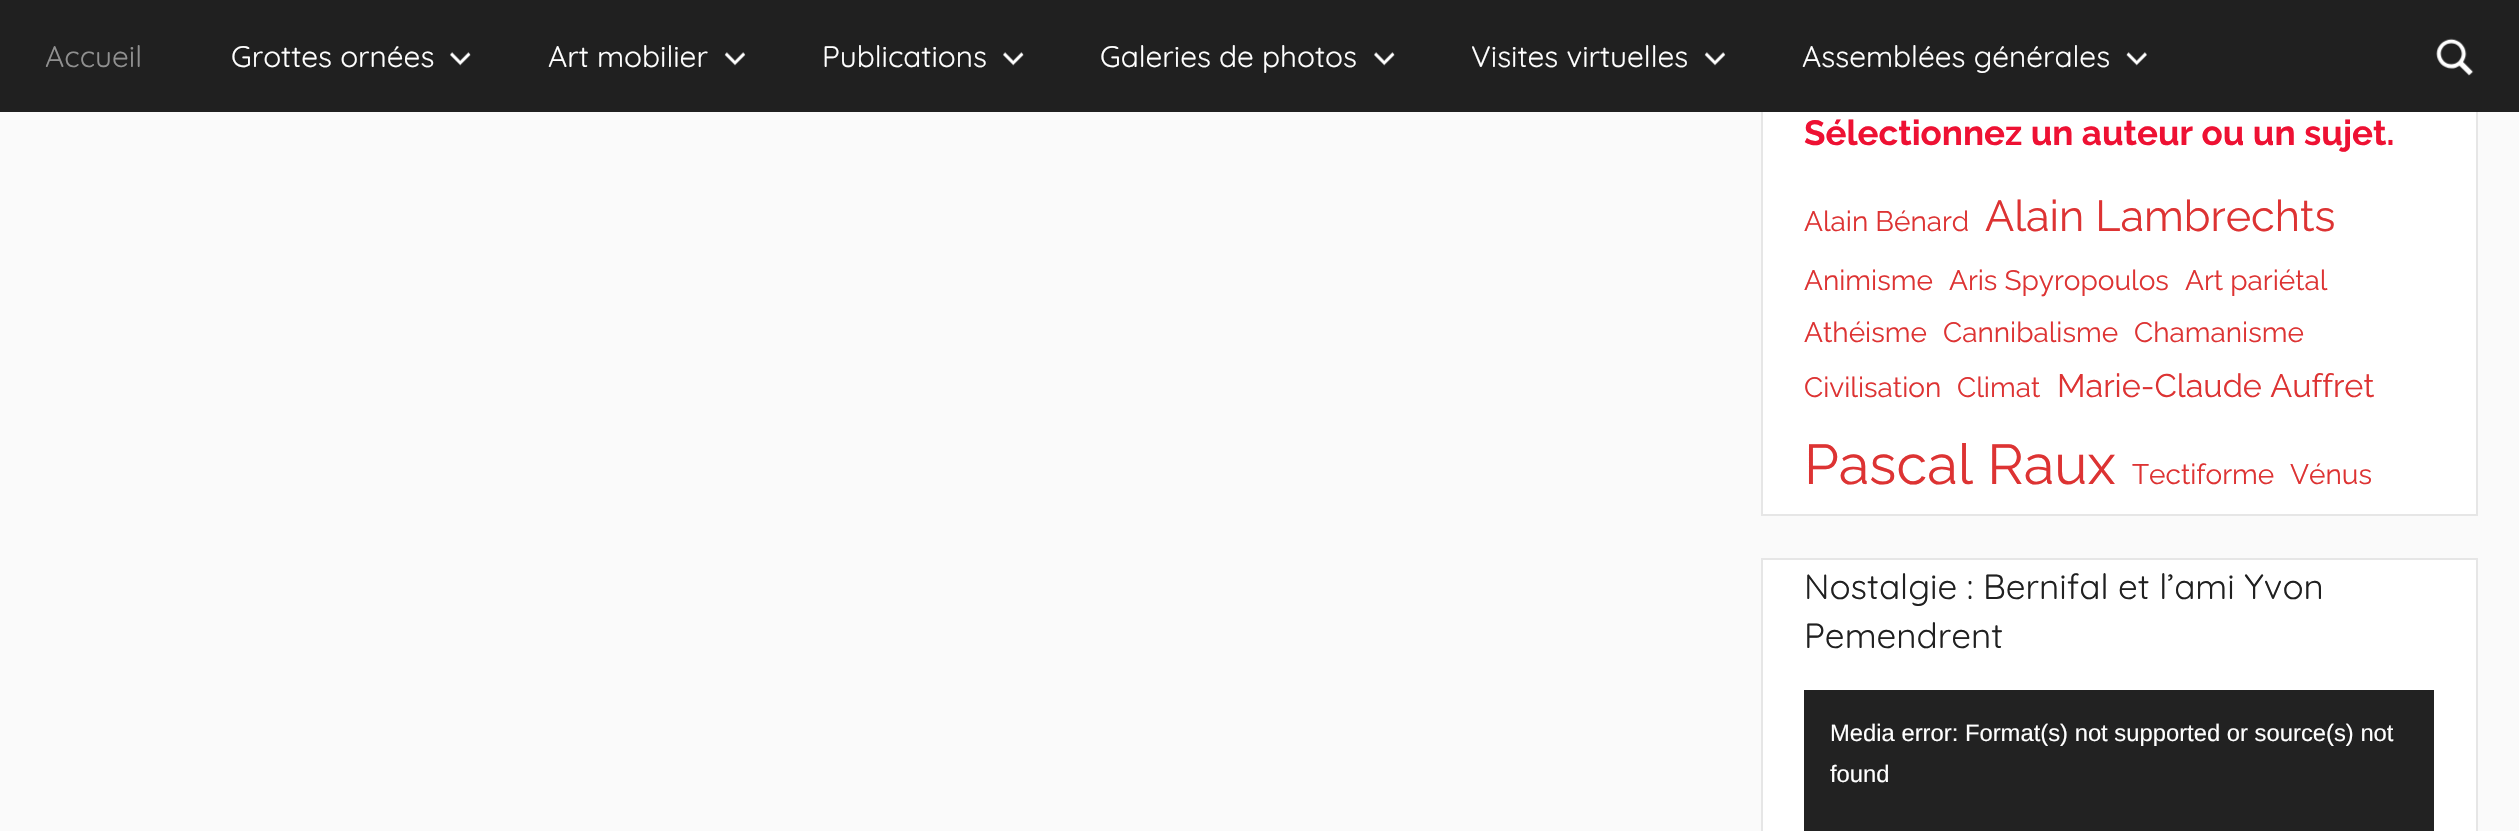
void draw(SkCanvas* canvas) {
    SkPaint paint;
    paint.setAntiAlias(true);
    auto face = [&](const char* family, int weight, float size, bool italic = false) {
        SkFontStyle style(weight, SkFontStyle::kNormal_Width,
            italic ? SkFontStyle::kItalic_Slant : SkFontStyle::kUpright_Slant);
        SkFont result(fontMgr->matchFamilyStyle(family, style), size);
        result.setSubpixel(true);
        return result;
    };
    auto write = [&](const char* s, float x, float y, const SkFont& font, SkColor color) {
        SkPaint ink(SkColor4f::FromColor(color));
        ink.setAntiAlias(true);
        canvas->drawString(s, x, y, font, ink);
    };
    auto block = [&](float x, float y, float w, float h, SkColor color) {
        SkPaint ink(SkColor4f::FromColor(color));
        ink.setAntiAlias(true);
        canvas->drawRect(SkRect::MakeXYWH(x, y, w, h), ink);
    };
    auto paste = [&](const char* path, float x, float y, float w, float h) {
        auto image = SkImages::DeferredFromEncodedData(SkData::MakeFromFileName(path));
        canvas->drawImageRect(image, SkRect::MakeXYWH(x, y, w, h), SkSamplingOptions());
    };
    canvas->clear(SkColorSetRGB(250, 250, 250));
    block(1763, 112, 713, 402, SK_ColorWHITE);
    paint.setStyle(SkPaint::kStroke_Style);
    paint.setStrokeWidth(2);
    paint.setColor(SkColorSetRGB(230, 230, 230));
    canvas->drawRect(SkRect::MakeXYWH(1762, 99, 715, 416), paint);
    block(0, 0, 2519, 112, SkColorSetRGB(32, 32, 32));
    auto kFont1 = face("Quicksand", 400, 29.75f);
    write("Accueil", 45, 67, kFont1, SkColorSetRGB(144, 144, 144));
    write("Grottes ornées", 231, 67, kFont1, SK_ColorWHITE);
    paste("pic1.png", 450, 52, 21, 14);
    write("Art mobilier", 548, 67, kFont1, SK_ColorWHITE);
    paste("pic2.png", 724, 52, 22, 14);
    write("Publications", 822, 67, kFont1, SK_ColorWHITE);
    paste("pic1.png", 1003, 52, 21, 14);
    write("Galeries de photos", 1100, 67, kFont1, SK_ColorWHITE);
    paste("pic1.png", 1374, 52, 21, 14);
    write("Visites virtuelles", 1471, 67, kFont1, SK_ColorWHITE);
    paste("pic2.png", 1704, 52, 22, 14);
    write("Assemblées générales", 1802, 67, kFont1, SK_ColorWHITE);
    paste("pic3.png", 2126, 52, 21, 14);
    paste("pic4.png", 2436, 38, 38, 38);
    auto kFont2 = face("Raleway", 700, 35);
    write("Sélectionnez un auteur ou un sujet.", 1804, 145, kFont2, SkColorSetRGB(238, 17, 51));
    auto kFont3 = face("Raleway", 400, 28);
    write("Alain Bénard", 1804, 231, kFont3, SkColorSetRGB(221, 51, 51));
    auto kFont4 = face("Raleway", 400, 43.25f);
    write("Alain Lambrechts", 1985, 231, kFont4, SkColorSetRGB(221, 51, 51));
    write("Animisme", 1804, 290, kFont3, SkColorSetRGB(221, 51, 51));
    write("Aris Spyropoulos", 1949, 290, kFont3, SkColorSetRGB(221, 51, 51));
    write("Art pariétal", 2185, 290, kFont3, SkColorSetRGB(221, 51, 51));
    write("Athéisme", 1804, 342, kFont3, SkColorSetRGB(221, 51, 51));
    write("Cannibalisme", 1943, 342, kFont3, SkColorSetRGB(221, 51, 51));
    write("Chamanisme", 2134, 342, kFont3, SkColorSetRGB(221, 51, 51));
    write("Civilisation", 1804, 397, kFont3, SkColorSetRGB(221, 51, 51));
    write("Climat", 1957, 397, kFont3, SkColorSetRGB(221, 51, 51));
    auto kFont5 = face("Raleway", 400, 32.5f);
    write("Marie-Claude Auffret", 2057, 397, kFont5, SkColorSetRGB(221, 51, 51));
    auto kFont6 = face("Raleway", 400, 56);
    write("Pascal Raux", 1804, 484, kFont6, SkColorSetRGB(221, 51, 51));
    write("Tectiforme", 2132, 484, kFont3, SkColorSetRGB(221, 51, 51));
    write("Vénus", 2290, 484, kFont3, SkColorSetRGB(221, 51, 51));
    paint.setStyle(SkPaint::kFill_Style);
    paint.setColor(SK_ColorWHITE);
    canvas->drawRect(SkRect::MakeXYWH(1762, 559, 715, 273), paint);
    paint.setStyle(SkPaint::kStroke_Style);
    paint.setColor(SkColorSetRGB(230, 230, 230));
    canvas->drawRect(SkRect::MakeXYWH(1762, 559, 715, 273), paint);
    auto kFont7 = face("Quicksand", 400, 35);
    write("Nostalgie : Bernifal et l’ami Yvon", 1804, 599, kFont7, SkColorSetRGB(32, 32, 32));
    write("Pemendrent", 1804, 648, kFont7, SkColorSetRGB(32, 32, 32));
    block(1804, 690, 630, 141, SkColorSetRGB(34, 34, 34));
    auto kFont8 = face("Liberation Sans", 400, 23.8f);
    write("Media error: Format(s) not supported or source(s) not", 1830, 741, kFont8, SK_ColorWHITE);
    write("found", 1830, 782, kFont8, SK_ColorWHITE);
}
